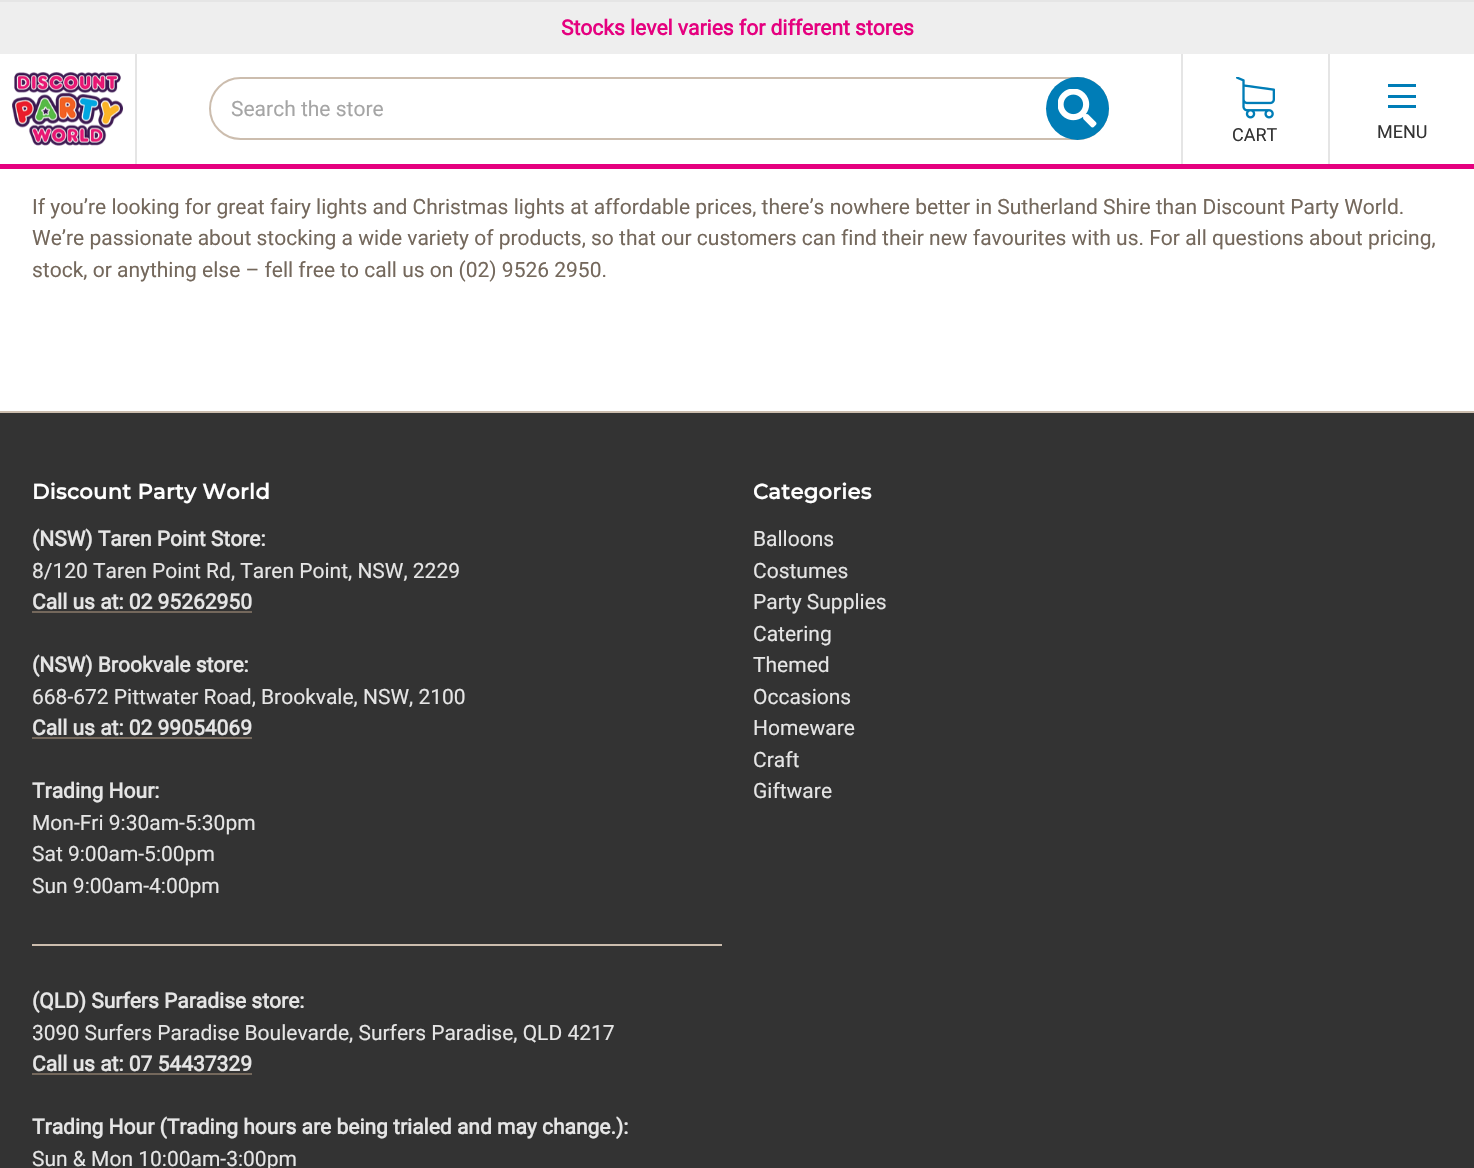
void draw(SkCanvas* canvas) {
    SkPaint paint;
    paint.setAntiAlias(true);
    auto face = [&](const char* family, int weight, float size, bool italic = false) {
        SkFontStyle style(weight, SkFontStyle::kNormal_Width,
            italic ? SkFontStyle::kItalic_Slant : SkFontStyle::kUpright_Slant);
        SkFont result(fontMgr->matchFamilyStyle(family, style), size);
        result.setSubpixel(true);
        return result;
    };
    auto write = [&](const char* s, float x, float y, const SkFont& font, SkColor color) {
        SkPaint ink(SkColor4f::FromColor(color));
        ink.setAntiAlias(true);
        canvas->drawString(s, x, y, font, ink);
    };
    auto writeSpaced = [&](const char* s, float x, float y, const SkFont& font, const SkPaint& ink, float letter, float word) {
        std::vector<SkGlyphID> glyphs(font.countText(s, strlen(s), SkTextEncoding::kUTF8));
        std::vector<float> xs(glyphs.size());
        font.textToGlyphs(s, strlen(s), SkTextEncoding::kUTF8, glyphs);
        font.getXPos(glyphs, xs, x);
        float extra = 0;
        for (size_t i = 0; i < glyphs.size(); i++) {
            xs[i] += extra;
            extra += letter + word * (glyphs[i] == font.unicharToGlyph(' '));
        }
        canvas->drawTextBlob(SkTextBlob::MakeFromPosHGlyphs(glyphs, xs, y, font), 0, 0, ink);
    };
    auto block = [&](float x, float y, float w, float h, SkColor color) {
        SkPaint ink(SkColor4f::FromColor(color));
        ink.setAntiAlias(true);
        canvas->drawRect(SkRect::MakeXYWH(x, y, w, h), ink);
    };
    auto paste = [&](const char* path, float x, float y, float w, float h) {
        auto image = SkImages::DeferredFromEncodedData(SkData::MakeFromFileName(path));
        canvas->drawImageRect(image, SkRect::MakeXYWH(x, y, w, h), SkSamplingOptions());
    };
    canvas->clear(SK_ColorWHITE);
    block(0, 0, 1474, 2, SkColorSetRGB(229, 229, 229));
    block(0, 2, 1474, 52, SkColorSetRGB(238, 238, 238));
    auto kFont1 = face("Roboto", 700, 21);
    write("Stocks level varies for different stores", 561, 35, kFont1, SkColorSetRGB(229, 0, 127));
    block(0, 164, 1474, 5, SkColorSetRGB(229, 0, 127));
    paste("pic1.png", 12, 72, 111, 74);
    block(135, 54, 2, 110, SkColorSetRGB(229, 229, 229));
    paint.setStyle(SkPaint::kStroke_Style);
    paint.setStrokeWidth(2);
    paint.setColor(SkColorSetRGB(204, 189, 174));
    canvas->drawRoundRect(SkRect::MakeXYWH(210, 78, 898, 61), 30.5f, 30.5f, paint);
    auto kFont2 = face("Roboto", 400, 21);
    write("Search the store", 231, 116, kFont2, SkColorSetRGB(165, 165, 165));
    paint.setStyle(SkPaint::kFill_Style);
    paint.setColor(SkColorSetRGB(0, 125, 183));
    canvas->drawCircle(1077.5f, 108.5f, 31.5f, paint);
    paste("pic2.png", 1058, 89, 39, 39);
    block(1181, 54, 2, 110, SkColorSetRGB(229, 229, 229));
    paste("pic3.png", 1236, 77, 39, 42);
    auto kFont3 = face("Roboto", 400, 18);
    write("CART", 1232, 141, kFont3, SkColorSetRGB(51, 51, 51));
    block(1328, 54, 2, 110, SkColorSetRGB(229, 229, 229));
    block(1388, 95, 28, 3, SkColorSetRGB(0, 125, 183));
    block(1388, 84, 28, 3, SkColorSetRGB(0, 125, 183));
    block(1388, 105, 28, 3, SkColorSetRGB(0, 125, 183));
    write("MENU", 1377, 138, kFont3, SkColorSetRGB(51, 51, 51));
    write("If you’re looking for great fairy lights and Christmas lights at affordable prices, there’s nowhere better in Sutherland Shire than Discount Party World.", 32, 214, kFont2, SkColorSetRGB(116, 104, 92));
    write("We’re passionate about stocking a wide variety of products, so that our customers can find their new favourites with us. For all questions about pricing,", 32, 245, kFont2, SkColorSetRGB(116, 104, 92));
    write("stock, or anything else – fell free to call us on (02) 9526 2950.", 32, 277, kFont2, SkColorSetRGB(116, 104, 92));
    block(0, 413, 1474, 755, SkColorSetRGB(51, 51, 51));
    block(0, 411, 1474, 2, SkColorSetRGB(204, 189, 174));
    auto kFont4 = face("Montserrat", 700, 21);
    paint.setColor(SK_ColorWHITE);
    writeSpaced("Discount Party World", 32, 499, kFont4, paint, 0.4f, 0);
    write("(NSW) Taren Point Store:", 32, 546, kFont1, SkColorSetRGB(229, 229, 229));
    write("8/120 Taren Point Rd, Taren Point, NSW, 2229", 32, 578, kFont2, SkColorSetRGB(229, 229, 229));
    write("Call us at: 02 95262950", 32, 609, kFont1, SkColorSetRGB(229, 229, 229));
    block(32, 611, 220, 2, SkColorSetRGB(116, 104, 92));
    write("(NSW) Brookvale store:", 32, 672, kFont1, SkColorSetRGB(229, 229, 229));
    write("668-672 Pittwater Road, Brookvale, NSW, 2100", 32, 704, kFont2, SkColorSetRGB(229, 229, 229));
    write("Call us at: 02 99054069", 32, 735, kFont1, SkColorSetRGB(229, 229, 229));
    block(32, 737, 220, 2, SkColorSetRGB(116, 104, 92));
    write("Trading Hour:", 32, 798, kFont1, SkColorSetRGB(229, 229, 229));
    write("Mon-Fri 9:30am-5:30pm", 32, 830, kFont2, SkColorSetRGB(229, 229, 229));
    write("Sat 9:00am-5:00pm", 32, 861, kFont2, SkColorSetRGB(229, 229, 229));
    write("Sun 9:00am-4:00pm", 32, 893, kFont2, SkColorSetRGB(229, 229, 229));
    block(32, 944, 690, 2, SkColorSetRGB(204, 189, 174));
    write("(QLD) Surfers Paradise store:", 32, 1008, kFont1, SkColorSetRGB(229, 229, 229));
    write("3090 Surfers Paradise Boulevarde, Surfers Paradise, QLD 4217", 32, 1040, kFont2, SkColorSetRGB(229, 229, 229));
    write("Call us at: 07 54437329", 32, 1071, kFont1, SkColorSetRGB(229, 229, 229));
    block(32, 1073, 220, 2, SkColorSetRGB(116, 104, 92));
    write("Trading Hour (Trading hours are being trialed and may change.):", 32, 1134, kFont1, SkColorSetRGB(229, 229, 229));
    write("Sun & Mon 10:00am-3:00pm", 32, 1166, kFont2, SkColorSetRGB(229, 229, 229));
    writeSpaced("Categories", 753, 499, kFont4, paint, 0.4f, 0);
    write("Balloons", 753, 546, kFont2, SkColorSetRGB(229, 229, 229));
    write("Costumes", 753, 578, kFont2, SkColorSetRGB(229, 229, 229));
    write("Party Supplies", 753, 609, kFont2, SkColorSetRGB(229, 229, 229));
    write("Catering", 753, 641, kFont2, SkColorSetRGB(229, 229, 229));
    write("Themed", 753, 672, kFont2, SkColorSetRGB(229, 229, 229));
    write("Occasions", 753, 704, kFont2, SkColorSetRGB(229, 229, 229));
    write("Homeware", 753, 735, kFont2, SkColorSetRGB(229, 229, 229));
    write("Craft", 753, 767, kFont2, SkColorSetRGB(229, 229, 229));
    write("Giftware", 753, 798, kFont2, SkColorSetRGB(229, 229, 229));
}
